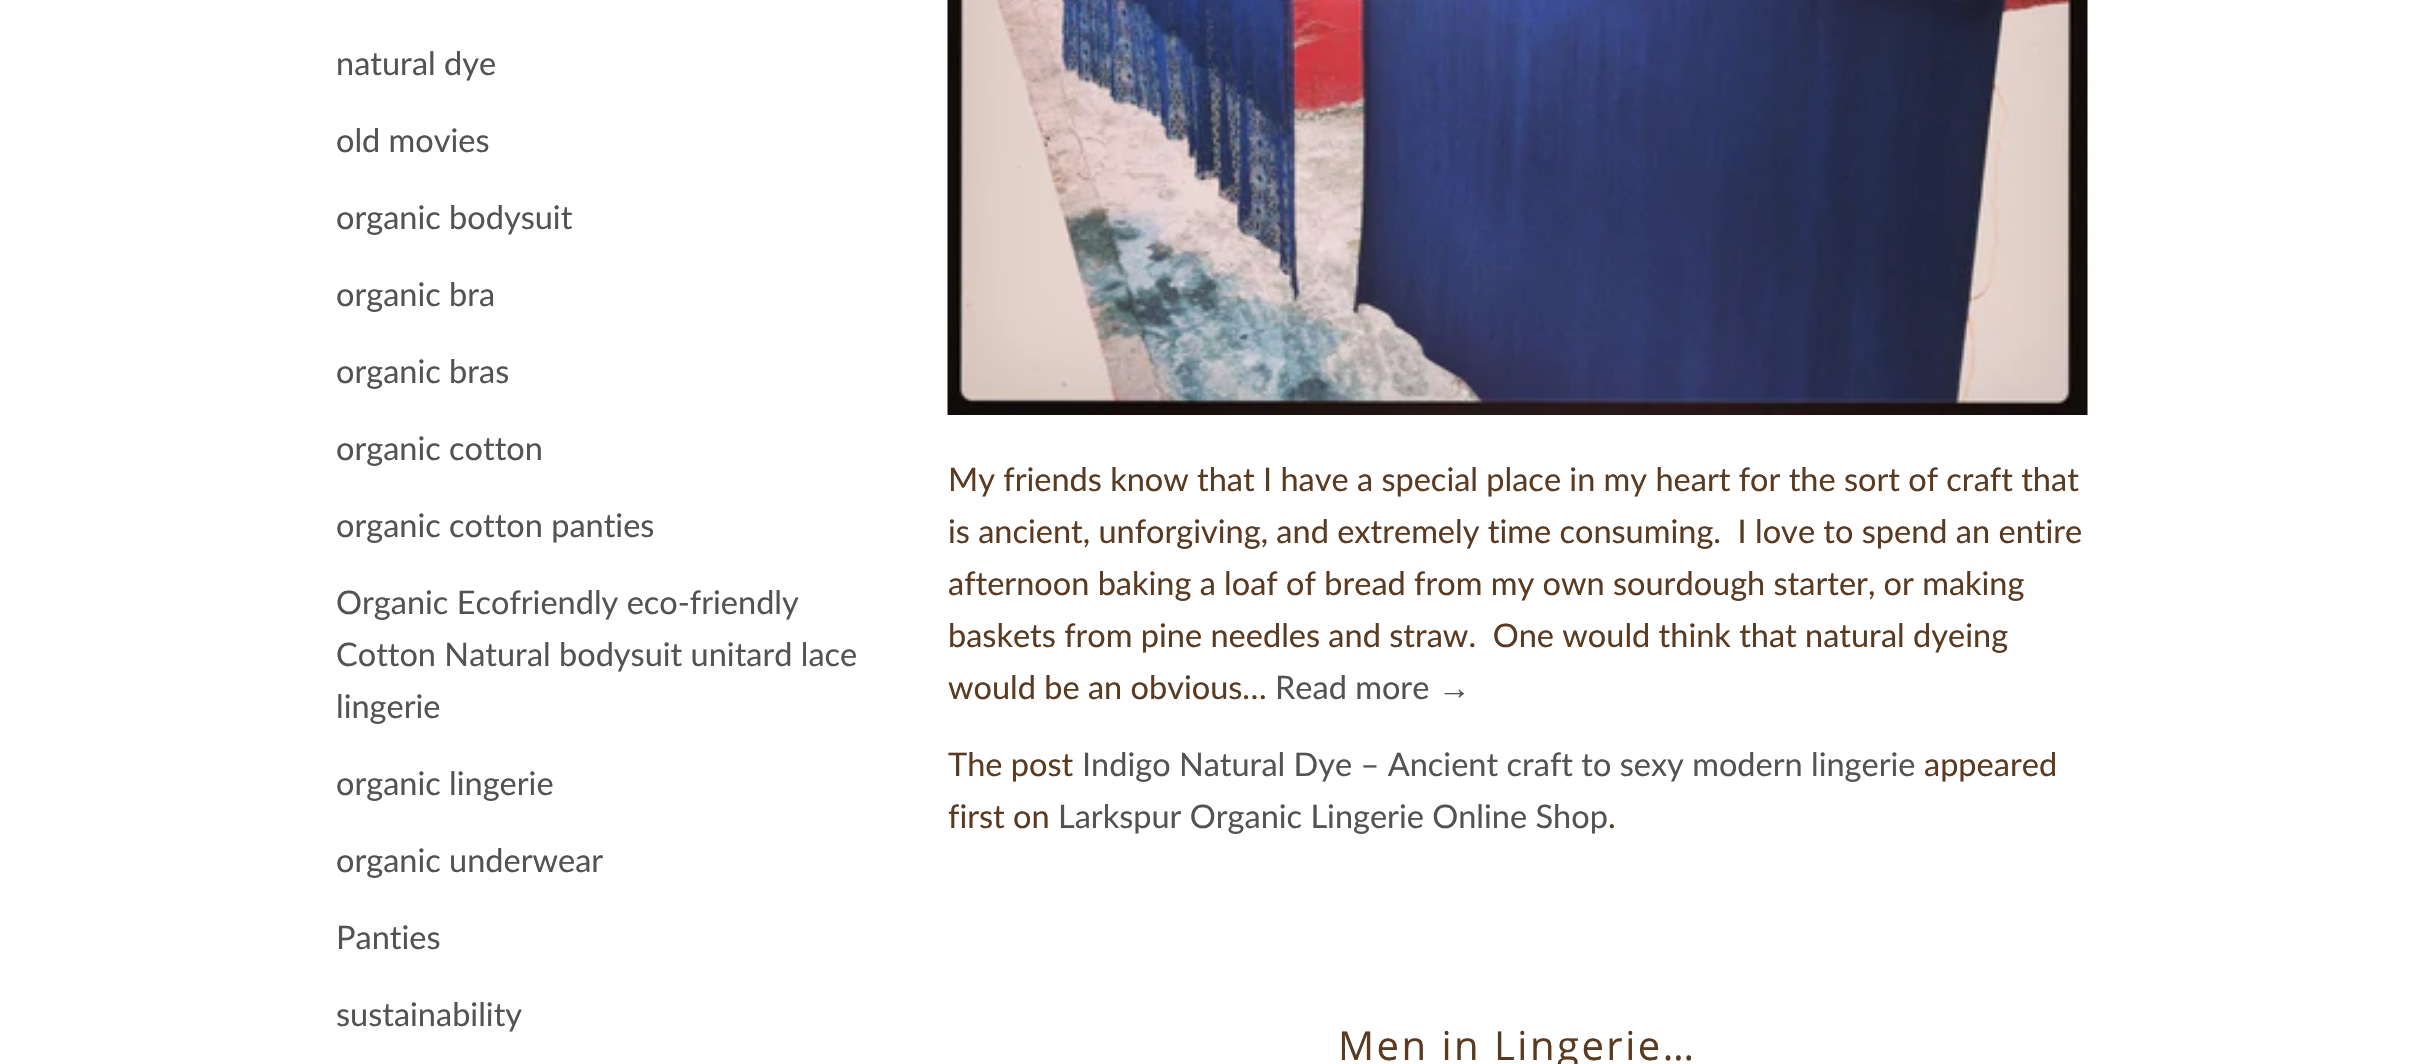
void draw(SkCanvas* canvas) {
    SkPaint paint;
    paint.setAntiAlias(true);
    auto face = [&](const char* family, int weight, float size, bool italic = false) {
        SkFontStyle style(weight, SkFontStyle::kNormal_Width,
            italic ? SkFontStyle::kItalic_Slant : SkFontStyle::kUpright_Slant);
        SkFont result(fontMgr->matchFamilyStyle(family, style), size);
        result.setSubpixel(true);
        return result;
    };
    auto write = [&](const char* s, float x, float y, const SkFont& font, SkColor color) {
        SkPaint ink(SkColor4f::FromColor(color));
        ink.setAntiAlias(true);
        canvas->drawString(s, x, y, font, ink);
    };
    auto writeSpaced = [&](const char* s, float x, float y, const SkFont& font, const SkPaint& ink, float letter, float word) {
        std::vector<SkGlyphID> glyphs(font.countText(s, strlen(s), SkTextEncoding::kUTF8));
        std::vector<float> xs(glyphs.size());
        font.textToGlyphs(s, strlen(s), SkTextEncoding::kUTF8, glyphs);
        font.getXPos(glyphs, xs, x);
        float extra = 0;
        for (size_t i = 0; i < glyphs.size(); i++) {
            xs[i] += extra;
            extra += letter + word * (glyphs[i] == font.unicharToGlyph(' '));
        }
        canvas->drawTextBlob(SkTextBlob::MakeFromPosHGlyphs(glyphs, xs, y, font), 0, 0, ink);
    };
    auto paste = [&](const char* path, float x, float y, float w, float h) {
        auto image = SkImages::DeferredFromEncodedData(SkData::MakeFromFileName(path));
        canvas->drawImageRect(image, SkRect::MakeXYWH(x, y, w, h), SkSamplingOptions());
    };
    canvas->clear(SK_ColorWHITE);
    auto kFont1 = face("Lato", 400, 32.5f);
    write("natural dye", 336, 75, kFont1, SkColorSetRGB(83, 83, 83));
    write("old movies", 336, 152, kFont1, SkColorSetRGB(83, 83, 83));
    write("organic bodysuit", 336, 229, kFont1, SkColorSetRGB(83, 83, 83));
    write("organic bra", 336, 306, kFont1, SkColorSetRGB(83, 83, 83));
    write("organic bras", 336, 383, kFont1, SkColorSetRGB(83, 83, 83));
    write("organic cotton", 336, 460, kFont1, SkColorSetRGB(83, 83, 83));
    write("organic cotton panties", 336, 537, kFont1, SkColorSetRGB(83, 83, 83));
    write("Organic Ecofriendly eco-friendly", 336, 614, kFont1, SkColorSetRGB(83, 83, 83));
    write("Cotton Natural bodysuit unitard lace", 336, 666, kFont1, SkColorSetRGB(83, 83, 83));
    write("lingerie", 336, 718, kFont1, SkColorSetRGB(83, 83, 83));
    write("organic lingerie", 336, 795, kFont1, SkColorSetRGB(83, 83, 83));
    write("organic underwear", 336, 872, kFont1, SkColorSetRGB(83, 83, 83));
    write("Panties", 336, 949, kFont1, SkColorSetRGB(83, 83, 83));
    write("sustainability", 336, 1026, kFont1, SkColorSetRGB(83, 83, 83));
    paste("pic1.png", 947, 0, 1141, 415);
    write("My friends know that I have a special place in my heart for the sort of craft that", 948, 491, kFont1, SkColorSetRGB(90, 59, 33));
    write("is ancient, unforgiving, and extremely time consuming.  I love to spend an entire", 948, 543, kFont1, SkColorSetRGB(90, 59, 33));
    write("afternoon baking a loaf of bread from my own sourdough starter, or making", 948, 595, kFont1, SkColorSetRGB(90, 59, 33));
    write("baskets from pine needles and straw.  One would think that natural dyeing", 948, 647, kFont1, SkColorSetRGB(90, 59, 33));
    write("would be an obvious…", 948, 699, kFont1, SkColorSetRGB(90, 59, 33));
    write("Read more", 1275, 699, kFont1, SkColorSetRGB(83, 83, 83));
    auto kFont2 = face("Liberation Serif", 400, 32.5f);
    write("→", 1438, 699, kFont2, SkColorSetRGB(83, 83, 83));
    write("The post", 948, 776, kFont1, SkColorSetRGB(90, 59, 33));
    write("Indigo Natural Dye – Ancient craft to sexy modern lingerie", 1082, 776, kFont1, SkColorSetRGB(83, 83, 83));
    write("appeared", 1924, 776, kFont1, SkColorSetRGB(90, 59, 33));
    write("first on", 948, 828, kFont1, SkColorSetRGB(90, 59, 33));
    write("Larkspur Organic Lingerie Online Shop", 1058, 828, kFont1, SkColorSetRGB(83, 83, 83));
    write(".", 1608, 828, kFont1, SkColorSetRGB(90, 59, 33));
    auto kFont3 = face("Open Sans", 400, 40);
    paint.setColor(SkColorSetRGB(90, 59, 33));
    writeSpaced("Men in Lingerie…", 1338, 1060, kFont3, paint, 2.5f, 0);
}
